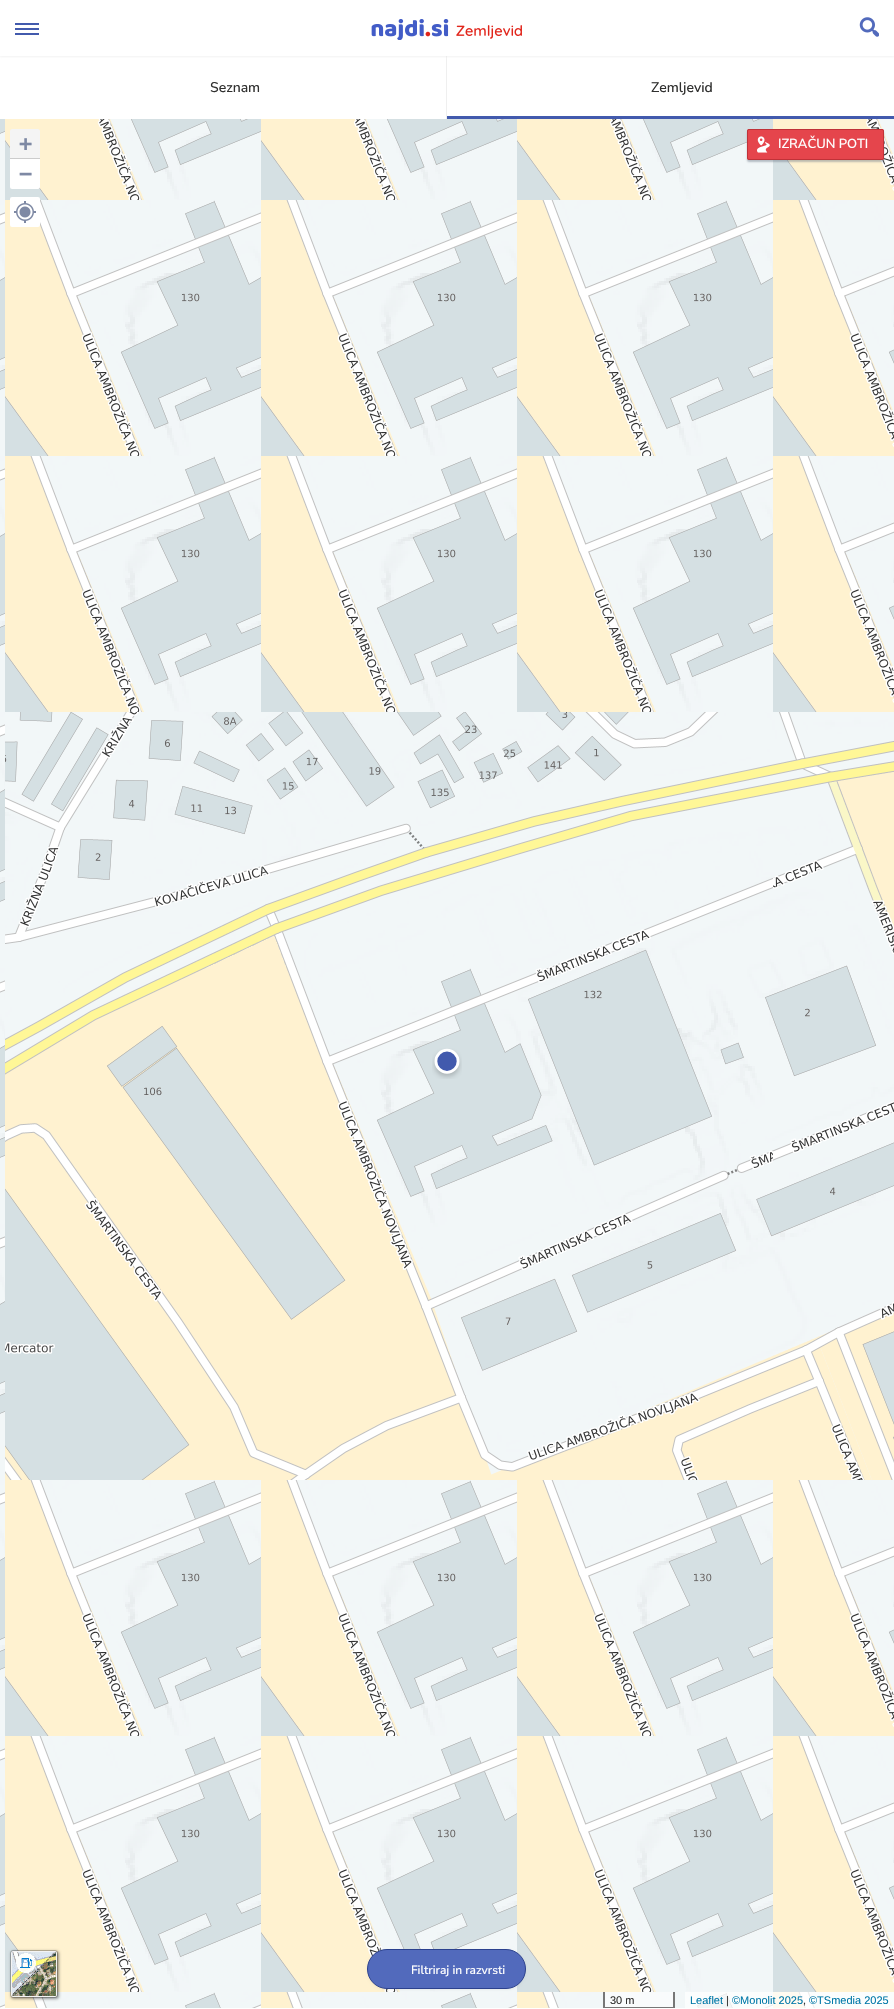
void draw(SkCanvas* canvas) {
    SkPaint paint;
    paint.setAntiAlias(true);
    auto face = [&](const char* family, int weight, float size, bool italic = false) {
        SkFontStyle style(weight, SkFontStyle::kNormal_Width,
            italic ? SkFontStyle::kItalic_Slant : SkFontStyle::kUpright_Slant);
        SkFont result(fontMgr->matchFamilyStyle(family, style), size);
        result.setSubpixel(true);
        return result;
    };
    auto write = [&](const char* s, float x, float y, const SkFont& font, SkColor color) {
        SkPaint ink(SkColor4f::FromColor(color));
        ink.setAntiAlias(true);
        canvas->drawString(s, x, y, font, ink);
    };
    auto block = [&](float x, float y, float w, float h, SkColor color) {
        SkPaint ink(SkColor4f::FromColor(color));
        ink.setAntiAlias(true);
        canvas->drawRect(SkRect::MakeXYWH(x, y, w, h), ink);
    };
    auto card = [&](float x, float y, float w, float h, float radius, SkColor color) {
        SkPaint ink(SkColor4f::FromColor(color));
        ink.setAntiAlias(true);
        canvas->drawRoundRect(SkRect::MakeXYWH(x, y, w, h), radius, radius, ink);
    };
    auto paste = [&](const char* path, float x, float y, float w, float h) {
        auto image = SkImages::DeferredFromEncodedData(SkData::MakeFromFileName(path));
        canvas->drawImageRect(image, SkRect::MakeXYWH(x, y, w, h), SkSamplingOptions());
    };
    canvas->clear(SK_ColorWHITE);
    block(446, 56, 1, 63, SkColorSetRGB(239, 239, 239));
    paint.setColor(SkColorSetARGB(128, 228, 228, 228));
    paint.setMaskFilter(SkMaskFilter::MakeBlur(kNormal_SkBlurStyle, 1));
    canvas->drawRect(SkRect::MakeXYWH(0, 1, 894, 56), paint);
    paint.setMaskFilter(nullptr);
    block(0, 0, 894, 56, SK_ColorWHITE);
    block(15, 23, 24, 2, SkColorSetRGB(66, 90, 173));
    block(15, 28, 24, 2, SkColorSetRGB(66, 90, 173));
    block(15, 33, 24, 2, SkColorSetRGB(66, 90, 173));
    paste("pic1.png", 371, 19, 151, 21);
    paste("pic2.png", 859, 17, 20, 20);
    auto kFont1 = face("Nunito Sans", 500, 14);
    write("Seznam", 210, 92, kFont1, SkColorSetRGB(48, 48, 47));
    write("Zemljevid", 651, 92, kFont1, SkColorSetRGB(48, 48, 47));
    block(447, 116, 447, 3, SkColorSetRGB(66, 90, 173));
    paste("pic5.png", 517, 119, 256, 81);
    paste("pic6.png", 773, 119, 121, 81);
    paint.setColor(SkColorSetARGB(115, 104, 115, 131));
    paint.setMaskFilter(SkMaskFilter::MakeBlur(kNormal_SkBlurStyle, 1));
    canvas->drawRoundRect(SkRect::MakeXYWH(747, 131, 137, 31), 2, 2, paint);
    paint.setMaskFilter(nullptr);
    card(747, 129, 137, 31, 2, SkColorSetRGB(229, 69, 76));
    paste("pic3.png", 757, 136, 13, 17);
    paint.setStyle(SkPaint::kStroke_Style);
    paint.setStrokeWidth(1);
    paint.setColor(SkColorSetRGB(192, 50, 56));
    canvas->drawRoundRect(SkRect::MakeXYWH(747.5f, 129.5f, 136, 30), 1.5f, 1.5f, paint);
    auto kFont2 = face("Nunito Sans", 500, 13);
    write("IZRAČUN POTI", 778, 148, kFont2, SK_ColorWHITE);
    paste("pic4.png", 0, 119, 5, 81);
    paste("pic5.png", 5, 119, 256, 81);
    paste("pic5.png", 261, 119, 256, 81);
    paste("pic7.png", 0, 200, 5, 256);
    paste("pic8.png", 5, 200, 256, 256);
    paste("pic8.png", 261, 200, 256, 256);
    paste("pic8.png", 517, 200, 256, 256);
    paste("pic9.png", 773, 200, 121, 256);
    paste("pic7.png", 0, 456, 5, 256);
    paste("pic8.png", 5, 456, 256, 256);
    paste("pic8.png", 261, 456, 256, 256);
    paste("pic8.png", 517, 456, 256, 256);
    paste("pic9.png", 773, 456, 121, 256);
    paste("pic7.png", 0, 712, 5, 256);
    paste("pic10.png", 5, 712, 256, 256);
    paste("pic11.png", 261, 712, 256, 256);
    paste("pic12.png", 517, 712, 256, 256);
    paste("pic13.png", 773, 712, 121, 256);
    paste("pic7.png", 0, 968, 5, 256);
    paste("pic14.png", 5, 968, 256, 256);
    paste("pic8.png", 261, 968, 256, 256);
    paste("pic15.png", 517, 968, 256, 256);
    paste("pic16.png", 773, 968, 121, 256);
    paste("pic7.png", 0, 1224, 5, 256);
    paste("pic17.png", 5, 1224, 256, 256);
    paste("pic18.png", 261, 1224, 256, 256);
    paste("pic19.png", 517, 1224, 256, 256);
    paste("pic20.png", 773, 1224, 121, 256);
    paste("pic7.png", 0, 1480, 5, 256);
    paste("pic8.png", 5, 1480, 256, 256);
    paste("pic8.png", 261, 1480, 256, 256);
    paste("pic8.png", 517, 1480, 256, 256);
    paste("pic9.png", 773, 1480, 121, 256);
    paste("pic7.png", 0, 1736, 5, 256);
    paste("pic8.png", 5, 1736, 256, 256);
    paste("pic8.png", 261, 1736, 256, 256);
    paste("pic8.png", 517, 1736, 256, 256);
    paste("pic9.png", 773, 1736, 121, 256);
    paste("pic21.png", 0, 1992, 5, 16);
    paste("pic22.png", 5, 1992, 256, 16);
    paste("pic22.png", 261, 1992, 256, 16);
    paste("pic22.png", 517, 1992, 256, 16);
    paste("pic23.png", 773, 1992, 121, 16);
    paste("pic24.png", 432, 1048, 30, 31);
    paint.setStyle(SkPaint::kFill_Style);
    paint.setColor(SkColorSetRGB(244, 244, 244));
    canvas->drawPath(SkPathBuilder().moveTo(12, 129).lineTo(38, 129).cubicTo(39, 129, 40, 130, 40, 131).lineTo(40, 159).lineTo(10, 159).lineTo(10, 131).cubicTo(10, 130, 11, 129, 12, 129).close().detach(), paint);
    block(10, 158, 30, 1, SkColorSetRGB(204, 204, 204));
    auto kFont3 = face("DejaVu Sans Mono", 700, 22);
    write("+", 19, 151, kFont3, SkColorSetRGB(126, 137, 164));
    paint.setColor(SK_ColorWHITE);
    canvas->drawPath(SkPathBuilder().moveTo(10, 159).lineTo(40, 159).lineTo(40, 187).cubicTo(40, 188, 39, 189, 38, 189).lineTo(12, 189).cubicTo(11, 189, 10, 188, 10, 187).close().detach(), paint);
    write("−", 19, 181, kFont3, SkColorSetRGB(126, 137, 164));
    card(10, 197, 30, 30, 2, SK_ColorWHITE);
    paste("pic25.png", 14, 201, 22, 22);
    paint.setColor(SkColorSetARGB(102, 0, 0, 0));
    paint.setMaskFilter(SkMaskFilter::MakeBlur(kNormal_SkBlurStyle, 1.5f));
    canvas->drawRoundRect(SkRect::MakeXYWH(11, 1951, 48, 48), 3, 3, paint);
    paint.setMaskFilter(nullptr);
    card(11, 1951, 46, 46, 2, SkColorSetRGB(244, 244, 244));
    paint.setStyle(SkPaint::kStroke_Style);
    paint.setColor(SkColorSetARGB(51, 0, 0, 0));
    canvas->drawRoundRect(SkRect::MakeXYWH(10.5f, 1950.5f, 47, 47), 2.5f, 2.5f, paint);
    paste("pic26.png", 12, 1952, 44, 44);
    block(605, 1992, 68, 15, SkColorSetRGB(249, 251, 252));
    block(673, 1992, 2, 16, SkColorSetRGB(119, 119, 119));
    block(603, 2007, 72, 1, SkColorSetRGB(119, 119, 119));
    block(603, 1992, 2, 16, SkColorSetRGB(119, 119, 119));
    auto kFont4 = face("Liberation Sans", 400, 11);
    write("30 m", 610, 2004, kFont4, SkColorSetRGB(48, 48, 47));
    block(685, 1992, 209, 16, SkColorSetARGB(179, 255, 255, 255));
    write("Leaflet", 690, 2004, kFont4, SkColorSetRGB(0, 120, 168));
    write("|", 726, 2004, kFont4, SkColorSetRGB(48, 48, 47));
    write("©Monolit 2025", 732, 2004, kFont4, SkColorSetRGB(0, 120, 168));
    write(",", 803, 2004, kFont4, SkColorSetRGB(48, 48, 47));
    write("©TSmedia 2025", 809, 2004, kFont4, SkColorSetRGB(0, 120, 168));
    paint.setStyle(SkPaint::kFill_Style);
    paint.setColor(SkColorSetARGB(13, 0, 0, 0));
    paint.setMaskFilter(SkMaskFilter::MakeBlur(kNormal_SkBlurStyle, 1));
    canvas->drawRoundRect(SkRect::MakeXYWH(367, 1950, 159, 40), 20, 20, paint);
    paint.setMaskFilter(nullptr);
    paint.setColor(SkColorSetRGB(82, 106, 188));
    canvas->drawRoundRect(SkRect::MakeXYWH(367.5f, 1949.5f, 158, 39), 19.5f, 19.5f, paint);
    paint.setStyle(SkPaint::kStroke_Style);
    paint.setColor(SkColorSetRGB(43, 65, 142));
    canvas->drawRoundRect(SkRect::MakeXYWH(367.5f, 1949.5f, 158, 39), 19.5f, 19.5f, paint);
    auto kFont5 = face("Nunito Sans", 500, 12);
    write("Filtriraj in razvrsti", 411, 1974, kFont5, SK_ColorWHITE);
}
